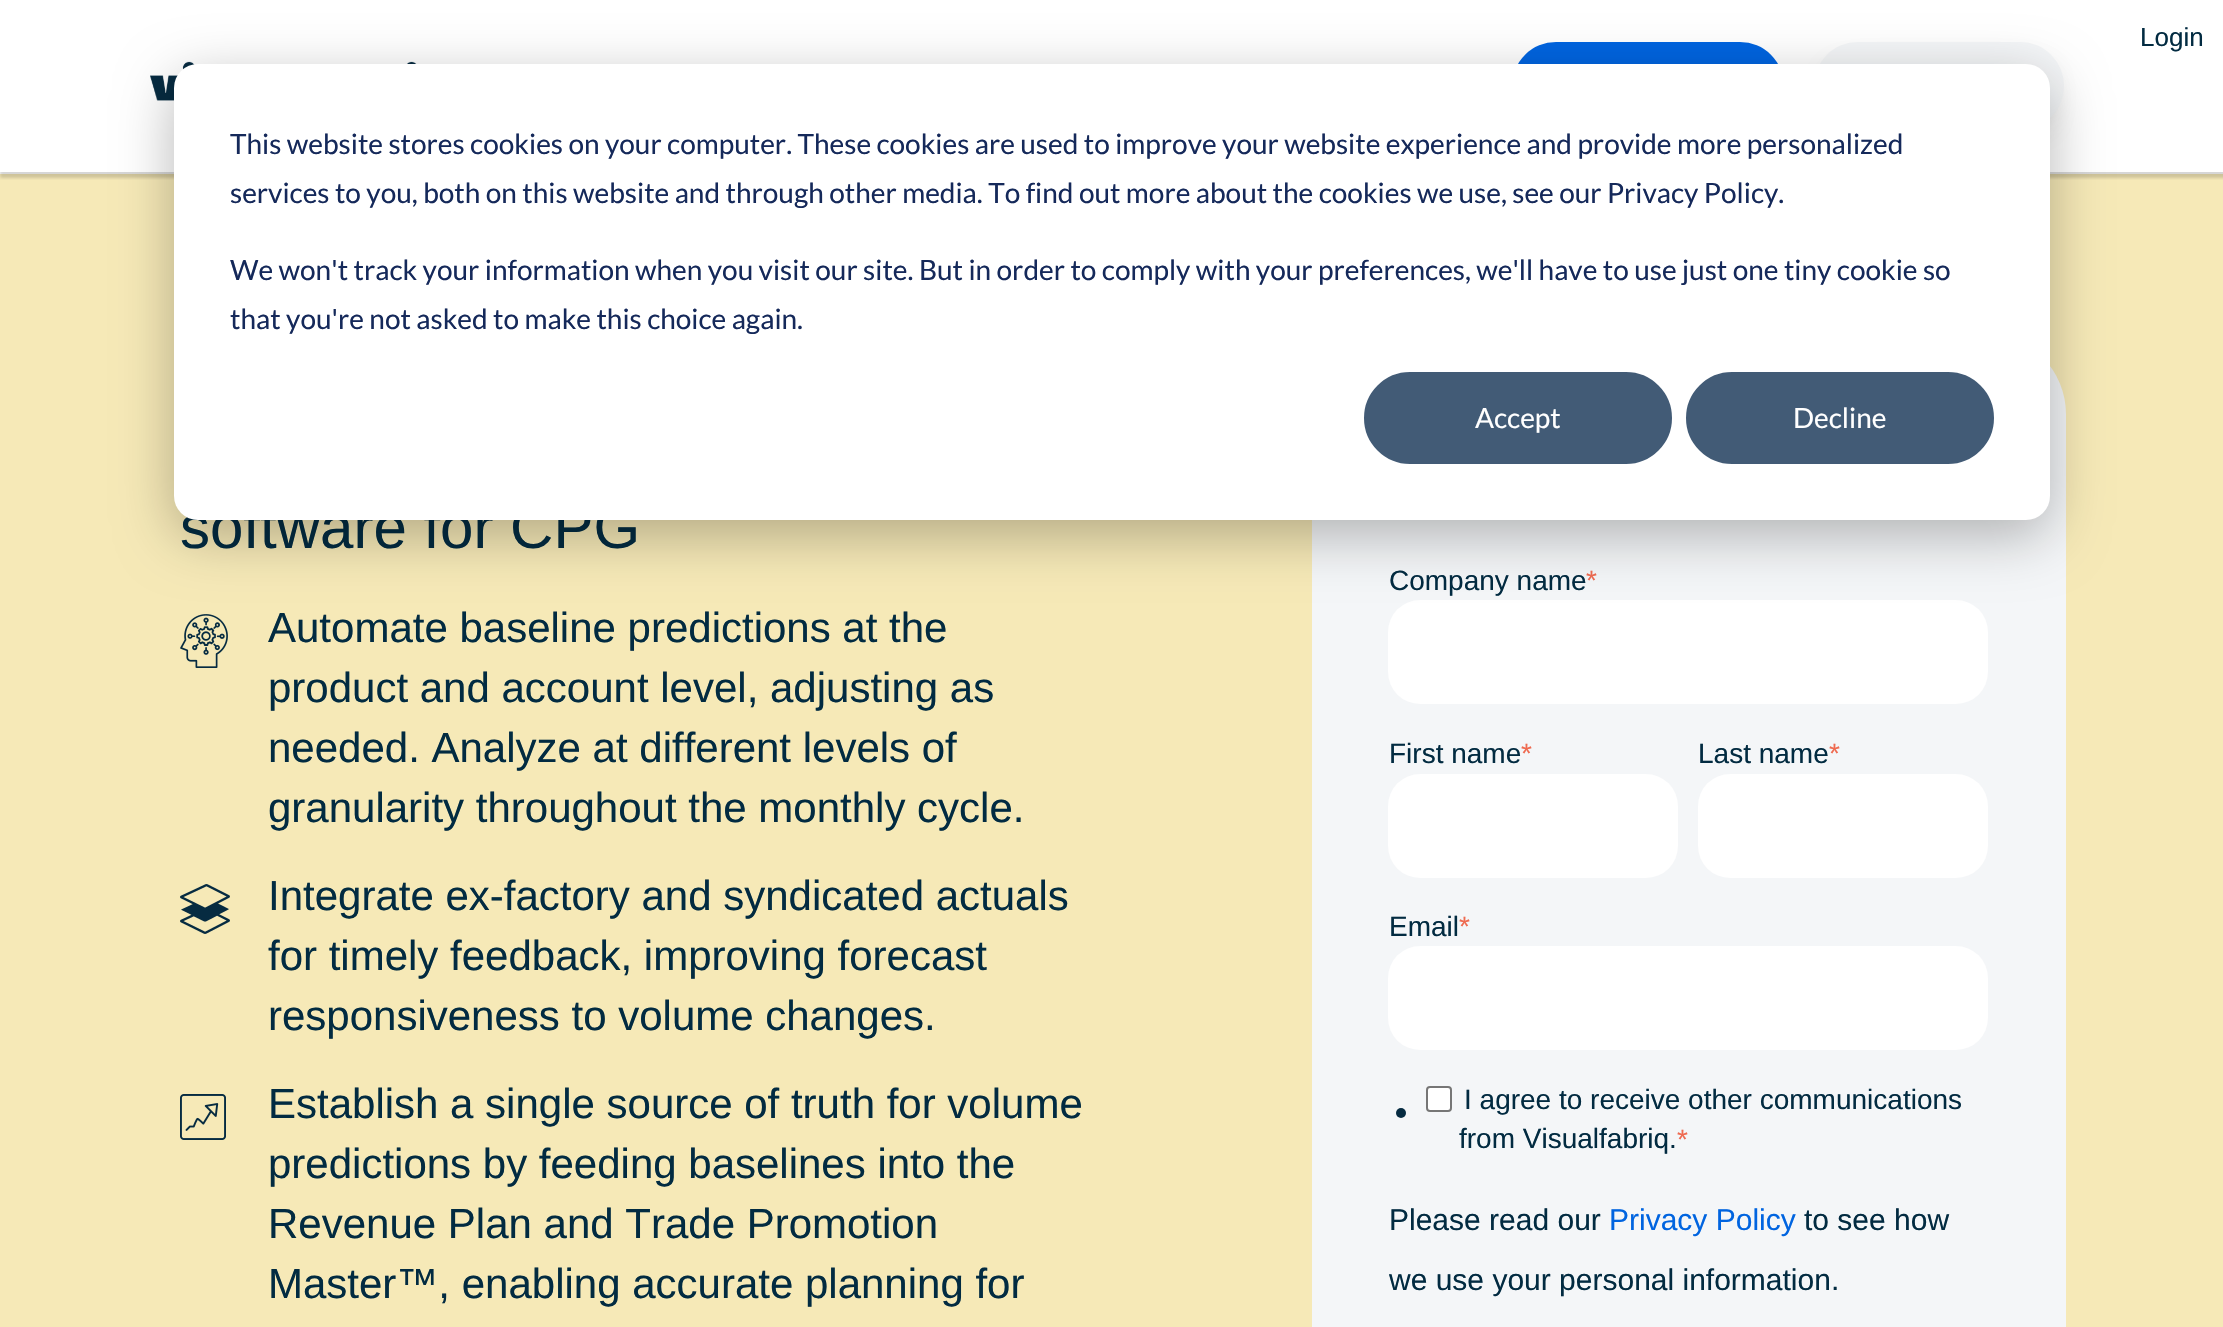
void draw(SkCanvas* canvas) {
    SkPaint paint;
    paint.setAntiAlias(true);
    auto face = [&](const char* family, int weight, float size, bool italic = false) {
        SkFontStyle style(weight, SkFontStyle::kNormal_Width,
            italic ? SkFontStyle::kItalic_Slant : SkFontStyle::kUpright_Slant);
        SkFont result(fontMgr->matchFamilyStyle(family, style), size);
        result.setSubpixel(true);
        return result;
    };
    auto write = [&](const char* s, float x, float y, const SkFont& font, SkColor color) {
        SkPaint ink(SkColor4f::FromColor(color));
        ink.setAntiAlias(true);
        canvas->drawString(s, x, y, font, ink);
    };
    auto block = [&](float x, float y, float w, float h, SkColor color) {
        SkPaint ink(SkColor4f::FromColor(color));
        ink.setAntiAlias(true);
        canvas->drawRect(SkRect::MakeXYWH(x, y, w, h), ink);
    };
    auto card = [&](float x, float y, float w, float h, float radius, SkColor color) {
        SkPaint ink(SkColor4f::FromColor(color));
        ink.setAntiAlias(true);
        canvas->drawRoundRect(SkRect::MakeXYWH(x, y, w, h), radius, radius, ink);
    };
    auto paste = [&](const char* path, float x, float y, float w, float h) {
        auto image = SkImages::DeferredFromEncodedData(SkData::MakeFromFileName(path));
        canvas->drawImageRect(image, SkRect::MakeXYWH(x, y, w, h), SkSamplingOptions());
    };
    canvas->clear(SK_ColorWHITE);
    block(0, 174, 2223, 1153, SkColorSetRGB(246, 233, 183));
    canvas->save();
    canvas->clipRect(SkRect::MakeXYWH(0, 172, 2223, 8));
    paint.setColor(SkColorSetARGB(41, 0, 0, 0));
    paint.setMaskFilter(SkMaskFilter::MakeBlur(kNormal_SkBlurStyle, 1.5f));
    canvas->drawRect(SkRect::MakeXYWH(0, 4, 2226, 174), paint);
    paint.setMaskFilter(nullptr);
    canvas->restore();
    card(1512, 42, 272, 88, 44, SkColorSetRGB(0, 100, 224));
    paint.setColor(SK_ColorBLACK);
    paint.setMaskFilter(SkMaskFilter::MakeBlur(kNormal_SkBlurStyle, 20));
    canvas->drawRoundRect(SkRect::MakeXYWH(1846, 86, 186, 24), 12, 12, paint);
    paint.setMaskFilter(nullptr);
    card(1814, 42, 250, 88, 44, SkColorSetRGB(244, 246, 248));
    auto kFont1 = face("Liberation Sans", 400, 26);
    write("Login", 2140, 46, kFont1, SkColorSetRGB(2, 43, 65));
    paste("pic1.png", 150, 61, 267, 40);
    auto kFont2 = face("Liberation Sans", 400, 60);
    write("software for CPG", 180, 548, kFont2, SkColorSetRGB(2, 43, 65));
    paste("pic2.png", 180, 614, 48, 54);
    auto kFont3 = face("Liberation Sans", 400, 42);
    write("Automate baseline predictions at the", 268, 642, kFont3, SkColorSetRGB(2, 43, 65));
    write("product and account level, adjusting as", 268, 702, kFont3, SkColorSetRGB(2, 43, 65));
    write("needed. Analyze at different levels of", 268, 762, kFont3, SkColorSetRGB(2, 43, 65));
    write("granularity throughout the monthly cycle.", 268, 822, kFont3, SkColorSetRGB(2, 43, 65));
    paste("pic3.png", 180, 884, 50, 50);
    write("Integrate ex-factory and syndicated actuals", 268, 910, kFont3, SkColorSetRGB(2, 43, 65));
    write("for timely feedback, improving forecast", 268, 970, kFont3, SkColorSetRGB(2, 43, 65));
    write("responsiveness to volume changes.", 268, 1030, kFont3, SkColorSetRGB(2, 43, 65));
    paste("pic4.png", 180, 1094, 46, 46);
    write("Establish a single source of truth for volume", 268, 1118, kFont3, SkColorSetRGB(2, 43, 65));
    write("predictions by feeding baselines into the", 268, 1178, kFont3, SkColorSetRGB(2, 43, 65));
    write("Revenue Plan and Trade Promotion", 268, 1238, kFont3, SkColorSetRGB(2, 43, 65));
    write("Master™, enabling accurate planning for", 268, 1298, kFont3, SkColorSetRGB(2, 43, 65));
    card(1312, 334, 754, 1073, 80, SkColorSetRGB(244, 246, 248));
    auto kFont4 = face("Liberation Sans", 400, 28);
    write("Company name", 1389, 590, kFont4, SkColorSetRGB(2, 43, 65));
    write("*", 1586, 590, kFont4, SkColorSetRGB(239, 107, 81));
    card(1388, 600, 600, 104, 32, SK_ColorWHITE);
    write("First name", 1389, 763, kFont4, SkColorSetRGB(2, 43, 65));
    write("*", 1521, 763, kFont4, SkColorSetRGB(239, 107, 81));
    card(1388, 774, 290, 104, 32, SK_ColorWHITE);
    write("Last name", 1698, 763, kFont4, SkColorSetRGB(2, 43, 65));
    write("*", 1829, 763, kFont4, SkColorSetRGB(239, 107, 81));
    card(1698, 774, 290, 104, 32, SK_ColorWHITE);
    write("Email", 1389, 936, kFont4, SkColorSetRGB(2, 43, 65));
    write("*", 1459, 936, kFont4, SkColorSetRGB(239, 107, 81));
    card(1388, 946, 600, 104, 32, SK_ColorWHITE);
    paint.setColor(SkColorSetRGB(6, 43, 65));
    canvas->drawCircle(1401, 1113, 5, paint);
    paint.setColor(SK_ColorWHITE);
    canvas->drawRoundRect(SkRect::MakeXYWH(1427, 1087, 24, 24), 3, 3, paint);
    paint.setStyle(SkPaint::kStroke_Style);
    paint.setStrokeWidth(2);
    paint.setColor(SkColorSetRGB(118, 118, 118));
    canvas->drawRoundRect(SkRect::MakeXYWH(1427, 1087, 24, 24), 3, 3, paint);
    write("I agree to receive other communications", 1464, 1109, kFont4, SkColorSetRGB(2, 43, 65));
    write("from Visualfabriq.", 1459, 1148, kFont4, SkColorSetRGB(2, 43, 65));
    write("*", 1677, 1149, kFont4, SkColorSetRGB(239, 107, 81));
    auto kFont5 = face("Liberation Sans", 400, 30);
    write("Please read our", 1389, 1230, kFont5, SkColorSetRGB(2, 43, 65));
    write("Privacy Policy", 1609, 1230, kFont5, SkColorSetRGB(0, 100, 224));
    write("to see how", 1804, 1230, kFont5, SkColorSetRGB(2, 43, 65));
    write("we use your personal information.", 1389, 1290, kFont5, SkColorSetRGB(2, 43, 65));
    paint.setStyle(SkPaint::kFill_Style);
    paint.setColor(SkColorSetARGB(71, 0, 0, 0));
    paint.setMaskFilter(SkMaskFilter::MakeBlur(kNormal_SkBlurStyle, 28));
    canvas->drawRoundRect(SkRect::MakeXYWH(174, 80, 1876, 456), 24, 24, paint);
    paint.setMaskFilter(nullptr);
    card(174, 64, 1876, 456, 24, SK_ColorWHITE);
    auto kFont6 = face("Lato", 400, 28);
    write("This website stores cookies on your computer. These cookies are used to improve your website experience and provide more personalized", 230, 154, kFont6, SkColorSetRGB(21, 41, 90));
    write("services to you, both on this website and through other media. To find out more about the cookies we use, see our Privacy Policy.", 230, 203, kFont6, SkColorSetRGB(21, 41, 90));
    write("We won't track your information when you visit our site. But in order to comply with your preferences, we'll have to use just one tiny cookie so", 230, 280, kFont6, SkColorSetRGB(21, 41, 90));
    write("that you're not asked to make this choice again.", 230, 329, kFont6, SkColorSetRGB(21, 41, 90));
    paint.setColor(SkColorSetRGB(66, 91, 118));
    canvas->drawRoundRect(SkRect::MakeXYWH(1365, 373, 306, 90), 45, 45, paint);
    paint.setStyle(SkPaint::kStroke_Style);
    canvas->drawRoundRect(SkRect::MakeXYWH(1365, 373, 306, 90), 45, 45, paint);
    write("Accept", 1475, 428, kFont6, SK_ColorWHITE);
    paint.setStyle(SkPaint::kFill_Style);
    canvas->drawRoundRect(SkRect::MakeXYWH(1687, 373, 306, 90), 45, 45, paint);
    paint.setStyle(SkPaint::kStroke_Style);
    canvas->drawRoundRect(SkRect::MakeXYWH(1687, 373, 306, 90), 45, 45, paint);
    write("Decline", 1793, 428, kFont6, SK_ColorWHITE);
}
